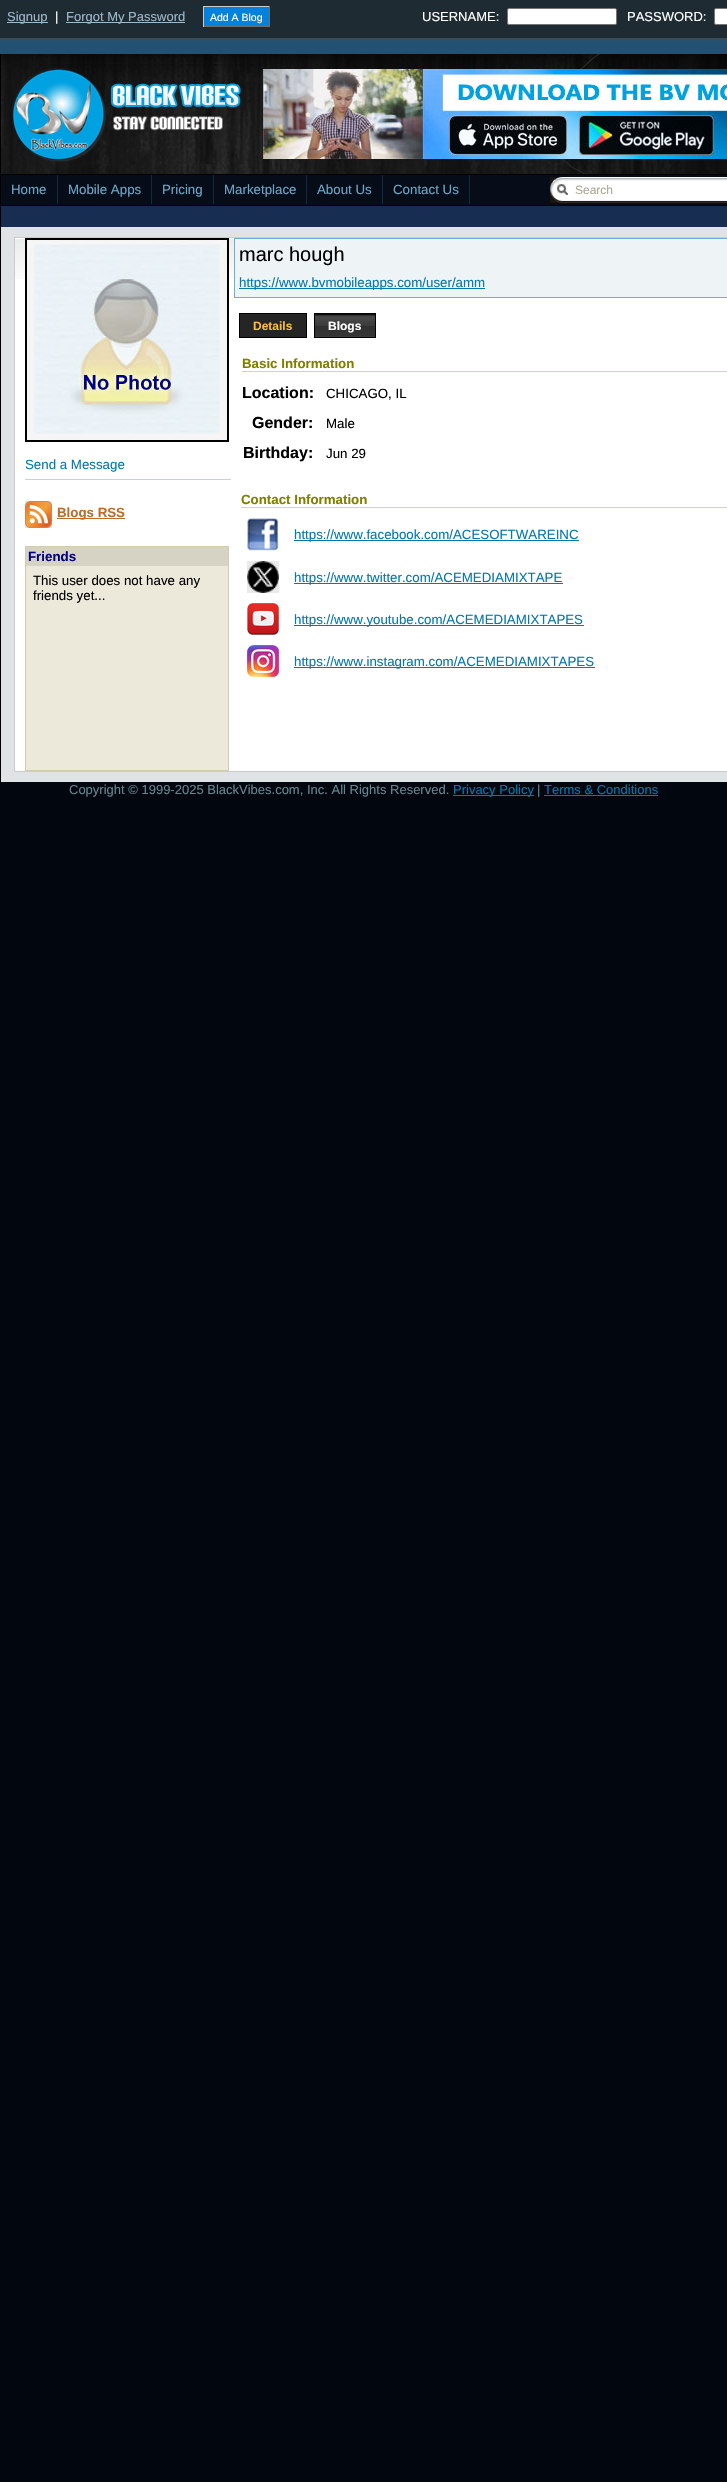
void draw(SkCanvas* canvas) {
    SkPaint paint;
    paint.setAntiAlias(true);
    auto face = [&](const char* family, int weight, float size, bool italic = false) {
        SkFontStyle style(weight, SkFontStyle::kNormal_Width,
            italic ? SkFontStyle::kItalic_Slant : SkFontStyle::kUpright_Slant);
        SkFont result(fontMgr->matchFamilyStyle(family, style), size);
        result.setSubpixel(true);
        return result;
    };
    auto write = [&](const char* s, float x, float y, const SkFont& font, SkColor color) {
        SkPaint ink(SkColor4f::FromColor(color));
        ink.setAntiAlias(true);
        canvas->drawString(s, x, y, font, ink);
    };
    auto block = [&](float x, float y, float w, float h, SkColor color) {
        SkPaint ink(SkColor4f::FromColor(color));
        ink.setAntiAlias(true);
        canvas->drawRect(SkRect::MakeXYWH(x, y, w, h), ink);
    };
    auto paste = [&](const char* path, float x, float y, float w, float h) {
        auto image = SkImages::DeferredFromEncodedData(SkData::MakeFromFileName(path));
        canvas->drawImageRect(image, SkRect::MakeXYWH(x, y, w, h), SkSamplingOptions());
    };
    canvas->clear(SkColorSetRGB(2, 7, 15));
    paste("pic1.png", 0, 39, 727, 15);
    block(0, 0, 727, 38, SkColorSetRGB(31, 43, 51));
    block(0, 38, 727, 1, SkColorSetRGB(63, 73, 80));
    block(7, 22, 41, 1, SkColorSetRGB(155, 186, 206));
    auto kFont1 = face("Liberation Sans", 400, 13);
    write("Signup", 7, 21, kFont1, SkColorSetRGB(155, 186, 206));
    write("|", 55, 21, kFont1, SK_ColorWHITE);
    block(66, 22, 119, 1, SkColorSetRGB(155, 186, 206));
    write("Forgot My Password", 66, 21, kFont1, SkColorSetRGB(155, 186, 206));
    block(204, 7, 65, 19, SkColorSetRGB(2, 130, 221));
    auto kFont2 = face("Liberation Sans", 400, 10.5f);
    write("Add A Blog", 210, 21, kFont2, SK_ColorWHITE);
    block(203, 6, 67, 1, SkColorSetRGB(204, 204, 204));
    block(269, 6, 1, 21, SkColorSetRGB(113, 111, 100));
    block(203, 26, 67, 1, SkColorSetRGB(113, 111, 100));
    block(203, 6, 1, 21, SkColorSetRGB(204, 204, 204));
    write("USERNAME:", 422, 21, kFont1, SK_ColorWHITE);
    paint.setColor(SK_ColorWHITE);
    canvas->drawRoundRect(SkRect::MakeXYWH(507.5f, 8.5f, 109, 16), 1.5f, 1.5f, paint);
    paint.setStyle(SkPaint::kStroke_Style);
    paint.setStrokeWidth(1);
    paint.setColor(SkColorSetRGB(118, 118, 118));
    canvas->drawRoundRect(SkRect::MakeXYWH(507.5f, 8.5f, 109, 16), 1.5f, 1.5f, paint);
    write("PASSWORD:", 627, 21, kFont1, SK_ColorWHITE);
    paint.setStyle(SkPaint::kFill_Style);
    paint.setColor(SK_ColorWHITE);
    canvas->drawRoundRect(SkRect::MakeXYWH(714.5f, 8.5f, 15, 16), 1.5f, 1.5f, paint);
    paint.setStyle(SkPaint::kStroke_Style);
    paint.setColor(SkColorSetRGB(118, 118, 118));
    canvas->drawRoundRect(SkRect::MakeXYWH(714.5f, 8.5f, 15, 16), 1.5f, 1.5f, paint);
    block(0, 54, 1, 728, SK_ColorBLACK);
    paste("pic2.png", 1, 54, 726, 120);
    paste("pic3.png", 12, 64, 249, 100);
    paste("pic4.png", 263, 69, 464, 90);
    block(1, 174, 726, 1, SK_ColorBLACK);
    block(1, 205, 726, 1, SK_ColorBLACK);
    block(1, 175, 726, 30, SkColorSetRGB(6, 13, 24));
    block(57, 175, 1, 29, SkColorSetRGB(18, 43, 65));
    auto kFont3 = face("Liberation Sans", 400, 13.3f);
    write("Home", 11, 194, kFont3, SkColorSetRGB(108, 167, 199));
    block(151, 175, 1, 29, SkColorSetRGB(18, 43, 65));
    write("Mobile Apps", 68, 194, kFont3, SkColorSetRGB(108, 167, 199));
    block(213, 175, 1, 29, SkColorSetRGB(18, 43, 65));
    write("Pricing", 162, 194, kFont3, SkColorSetRGB(108, 167, 199));
    block(306, 175, 1, 29, SkColorSetRGB(18, 43, 65));
    write("Marketplace", 224, 194, kFont3, SkColorSetRGB(108, 167, 199));
    block(382, 175, 1, 29, SkColorSetRGB(18, 43, 65));
    write("About Us", 317, 194, kFont3, SkColorSetRGB(108, 167, 199));
    block(469, 175, 1, 29, SkColorSetRGB(18, 43, 65));
    write("Contact Us", 393, 194, kFont3, SkColorSetRGB(108, 167, 199));
    paste("pic5.png", 550, 177, 177, 26);
    auto kFont4 = face("Liberation Sans", 400, 12);
    write("Search", 575, 194, kFont4, SkColorSetRGB(174, 165, 146));
    block(1, 206, 726, 21, SkColorSetRGB(23, 46, 82));
    block(1, 227, 726, 555, SkColorSetRGB(223, 227, 230));
    block(15, 238, 712, 533, SK_ColorWHITE);
    paste("pic6.png", 15, 239, 219, 40);
    paint.setColor(SkColorSetRGB(204, 204, 204));
    canvas->drawRect(SkRect::MakeXYWH(14.5f, 237.5f, 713, 534), paint);
    block(25, 238, 204, 204, SK_ColorBLACK);
    paste("pic7.png", 27, 240, 200, 200);
    write("Send a Message", 25, 469, kFont3, SkColorSetRGB(5, 120, 173));
    block(25, 479, 206, 1, SkColorSetRGB(192, 212, 233));
    paste("pic8.png", 25, 501, 27, 27);
    block(57, 518, 68, 1, SkColorSetRGB(189, 109, 43));
    auto kFont5 = face("Liberation Sans", 700, 13.3f);
    write("Blogs RSS", 57, 517, kFont5, SkColorSetRGB(189, 109, 43));
    block(26, 566, 202, 204, SkColorSetRGB(237, 233, 218));
    paint.setColor(SkColorSetRGB(212, 204, 175));
    canvas->drawRect(SkRect::MakeXYWH(25.5f, 546.5f, 203, 224), paint);
    block(26, 547, 202, 19, SkColorSetRGB(215, 211, 196));
    write("Friends", 28, 561, kFont5, SkColorSetRGB(0, 0, 128));
    write("This user does not have any", 33, 585, kFont3, SK_ColorBLACK);
    write("friends yet...", 33, 600, kFont3, SK_ColorBLACK);
    paint.setStyle(SkPaint::kFill_Style);
    paint.setColor(SkColorSetRGB(238, 243, 246));
    canvas->drawRect(SkRect::MakeXYWH(234.5f, 238.5f, 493, 59), paint);
    paint.setStyle(SkPaint::kStroke_Style);
    paint.setColor(SkColorSetRGB(109, 174, 213));
    canvas->drawRect(SkRect::MakeXYWH(234.5f, 238.5f, 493, 59), paint);
    auto kFont6 = face("Liberation Sans", 400, 20);
    write("marc hough", 239, 261, kFont6, SK_ColorBLACK);
    block(239, 288, 246, 1, SkColorSetRGB(5, 120, 173));
    write("https://www.bvmobileapps.com/user/amm", 239, 287, kFont3, SkColorSetRGB(5, 120, 173));
    paint.setStyle(SkPaint::kFill_Style);
    paint.setColor(SkColorSetRGB(37, 37, 37));
    canvas->drawRect(SkRect::MakeXYWH(239.5f, 313.5f, 67, 24), paint);
    paint.setStyle(SkPaint::kStroke_Style);
    paint.setColor(SK_ColorBLACK);
    canvas->drawRect(SkRect::MakeXYWH(239.5f, 313.5f, 67, 24), paint);
    auto kFont7 = face("Liberation Sans", 700, 12);
    write("Details", 253, 330, kFont7, SkColorSetRGB(251, 187, 63));
    paste("pic9.png", 315, 314, 60, 23);
    canvas->drawRect(SkRect::MakeXYWH(314.5f, 313.5f, 61, 24), paint);
    write("Blogs", 328, 330, kFont7, SK_ColorWHITE);
    write("Basic Information", 242, 368, kFont5, SkColorSetRGB(128, 128, 0));
    block(242, 371, 485, 1, SkColorSetRGB(192, 212, 233));
    auto kFont8 = face("Liberation Sans", 700, 16);
    write("Location:", 242, 398, kFont8, SK_ColorBLACK);
    write("CHICAGO, IL", 326, 398, kFont3, SK_ColorBLACK);
    write("Gender:", 252, 428, kFont8, SK_ColorBLACK);
    write("Male", 326, 428, kFont3, SK_ColorBLACK);
    write("Birthday:", 243, 458, kFont8, SK_ColorBLACK);
    write("Jun 29", 326, 458, kFont3, SK_ColorBLACK);
    write("Contact Information", 241, 504, kFont5, SkColorSetRGB(128, 128, 0));
    block(241, 507, 486, 1, SkColorSetRGB(192, 212, 233));
    paste("pic10.png", 247, 518, 32, 33);
    block(294, 540, 285, 1, SkColorSetRGB(5, 120, 173));
    write("https://www.facebook.com/ACESOFTWAREINC", 294, 539, kFont3, SkColorSetRGB(5, 120, 173));
    paste("pic11.png", 247, 561, 32, 32);
    block(294, 583, 269, 1, SkColorSetRGB(5, 120, 173));
    write("https://www.twitter.com/ACEMEDIAMIXTAPE", 294, 582, kFont3, SkColorSetRGB(5, 120, 173));
    paste("pic12.png", 247, 603, 32, 32);
    block(294, 625, 290, 1, SkColorSetRGB(5, 120, 173));
    write("https://www.youtube.com/ACEMEDIAMIXTAPES", 294, 624, kFont3, SkColorSetRGB(5, 120, 173));
    paste("pic13.png", 247, 645, 32, 32);
    block(294, 667, 301, 1, SkColorSetRGB(5, 120, 173));
    write("https://www.instagram.com/ACEMEDIAMIXTAPES", 294, 666, kFont3, SkColorSetRGB(5, 120, 173));
    write("Copyright © 1999-2025 BlackVibes.com, Inc. All Rights Reserved.", 69, 794, kFont1, SkColorSetRGB(102, 135, 144));
    block(453, 795, 81, 1, SkColorSetRGB(5, 120, 173));
    write("Privacy Policy", 453, 794, kFont1, SkColorSetRGB(5, 120, 173));
    write("|", 537, 794, kFont1, SkColorSetRGB(102, 135, 144));
    write("Terms & Conditions", 544, 794, kFont1, SkColorSetRGB(5, 120, 173));
    block(544, 795, 114, 1, SkColorSetRGB(5, 120, 173));
}
